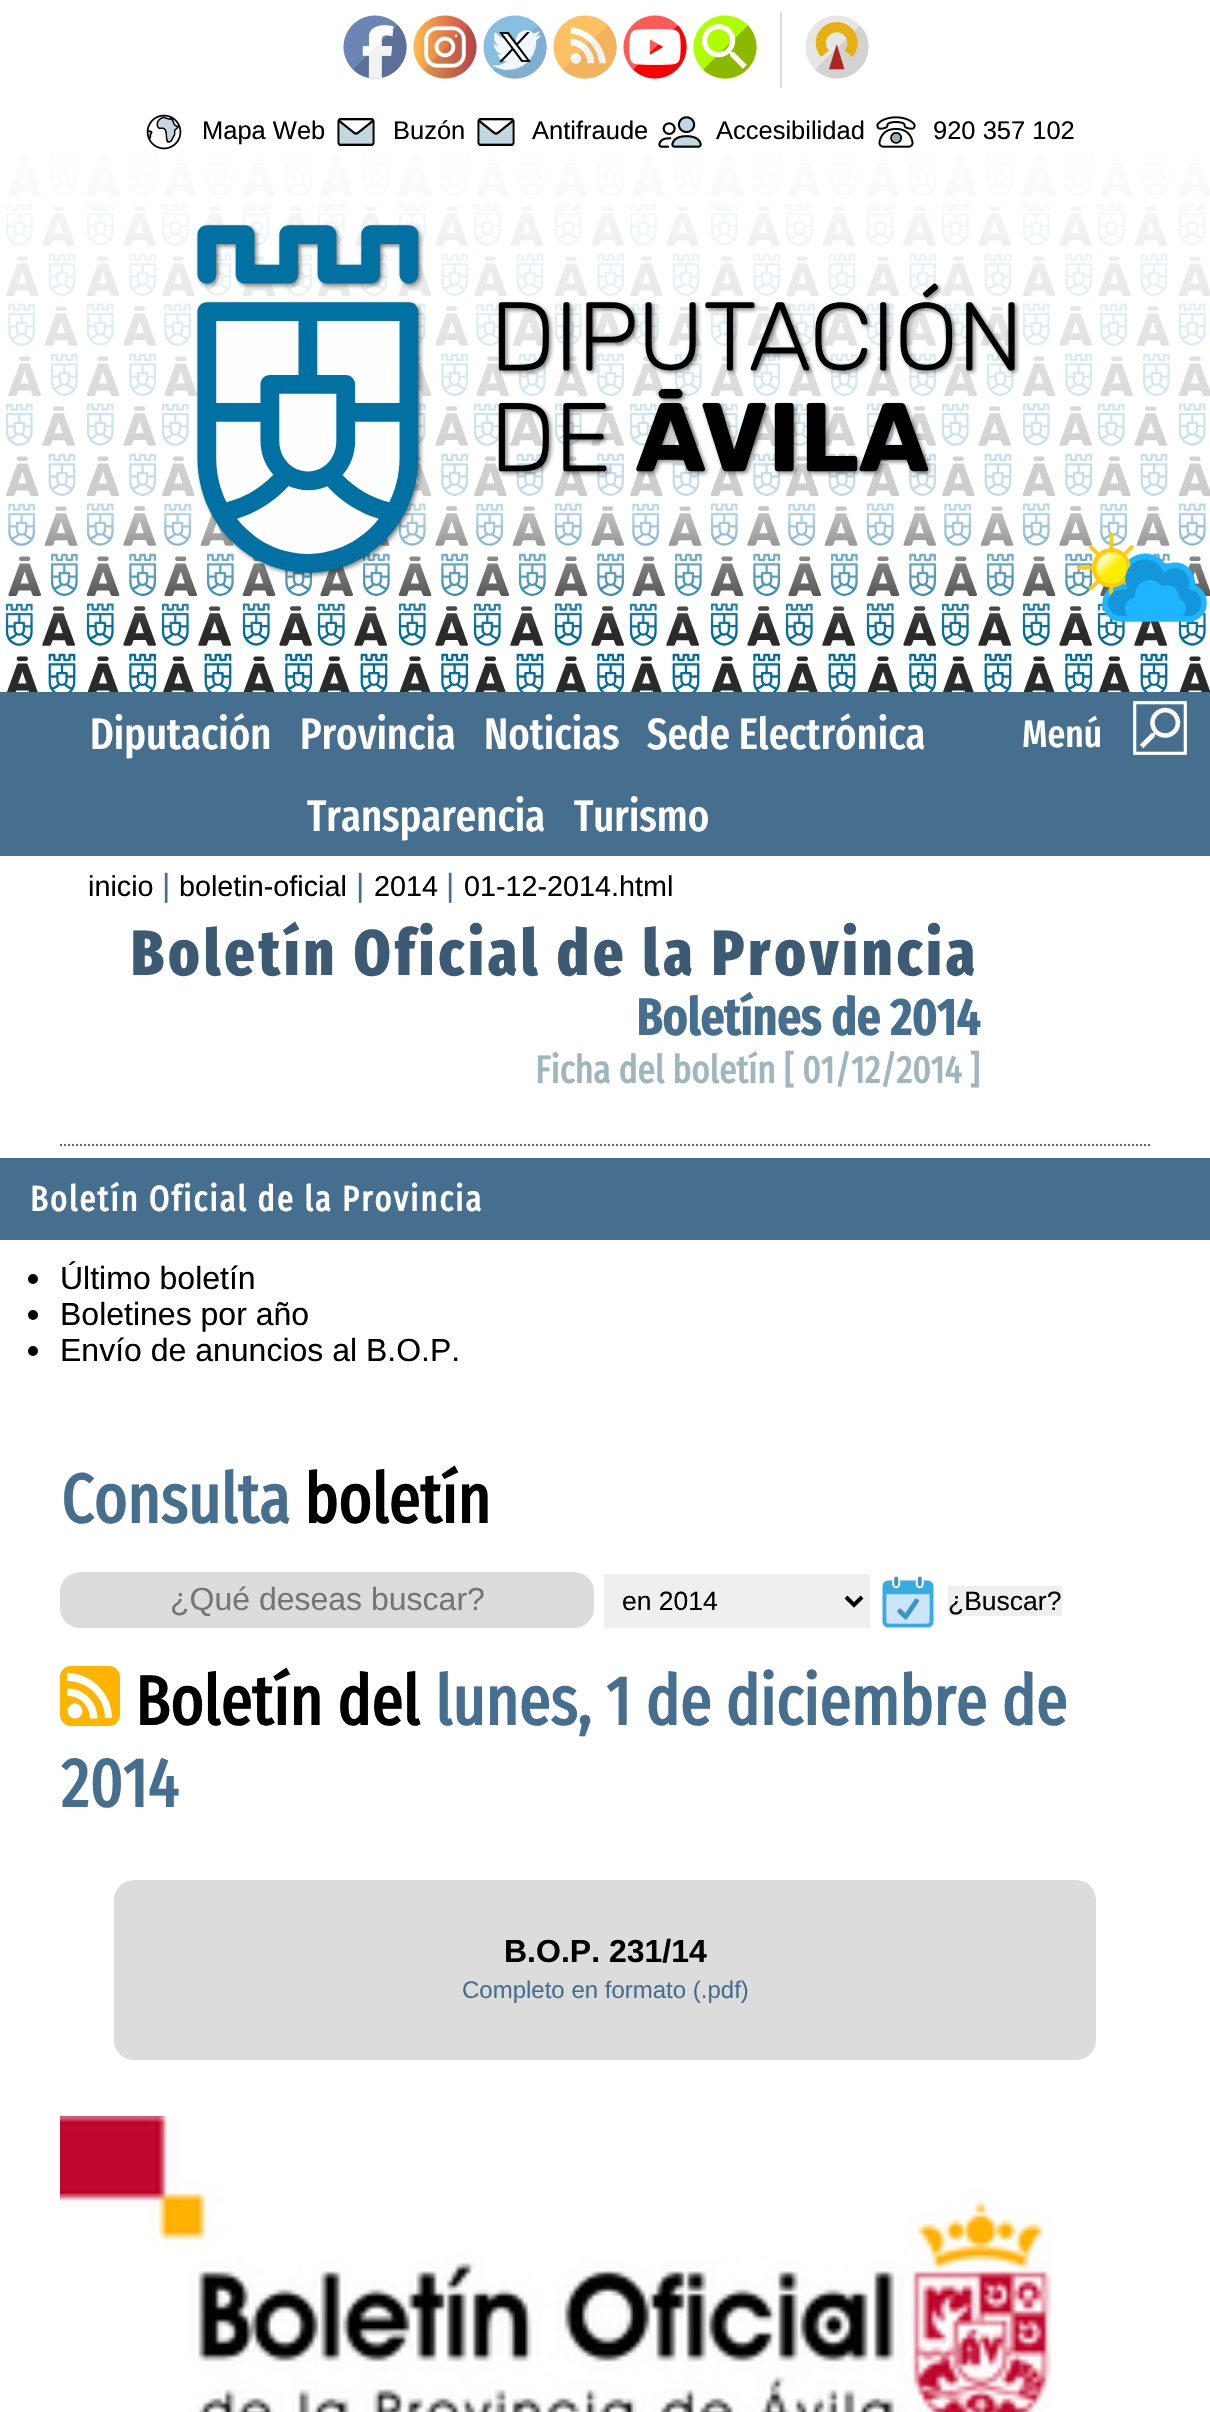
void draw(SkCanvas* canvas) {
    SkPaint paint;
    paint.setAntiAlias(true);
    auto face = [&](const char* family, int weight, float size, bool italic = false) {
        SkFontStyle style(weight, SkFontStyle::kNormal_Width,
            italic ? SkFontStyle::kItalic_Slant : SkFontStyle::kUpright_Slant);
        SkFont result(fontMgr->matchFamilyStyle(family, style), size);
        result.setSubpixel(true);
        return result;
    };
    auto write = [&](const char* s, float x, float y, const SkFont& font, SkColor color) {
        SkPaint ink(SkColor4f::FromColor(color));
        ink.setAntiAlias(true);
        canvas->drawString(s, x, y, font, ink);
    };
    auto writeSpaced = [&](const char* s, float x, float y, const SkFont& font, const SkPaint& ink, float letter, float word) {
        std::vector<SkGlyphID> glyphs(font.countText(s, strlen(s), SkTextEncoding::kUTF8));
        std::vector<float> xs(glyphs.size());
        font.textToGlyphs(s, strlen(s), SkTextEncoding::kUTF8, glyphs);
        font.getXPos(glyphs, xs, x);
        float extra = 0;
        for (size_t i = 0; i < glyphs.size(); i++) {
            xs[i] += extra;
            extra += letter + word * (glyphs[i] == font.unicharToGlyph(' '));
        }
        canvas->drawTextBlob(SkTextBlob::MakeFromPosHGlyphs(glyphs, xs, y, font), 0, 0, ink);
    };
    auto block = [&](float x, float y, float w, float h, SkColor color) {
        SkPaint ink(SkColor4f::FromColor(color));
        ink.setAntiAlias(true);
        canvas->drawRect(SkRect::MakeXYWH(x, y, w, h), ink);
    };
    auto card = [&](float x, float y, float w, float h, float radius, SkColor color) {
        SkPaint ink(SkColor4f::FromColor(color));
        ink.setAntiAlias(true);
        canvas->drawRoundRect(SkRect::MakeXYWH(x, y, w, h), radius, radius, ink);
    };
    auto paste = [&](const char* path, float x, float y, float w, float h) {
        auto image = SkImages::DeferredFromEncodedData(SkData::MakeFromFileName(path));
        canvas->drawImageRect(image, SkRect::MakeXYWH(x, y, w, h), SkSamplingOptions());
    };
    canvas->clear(SK_ColorWHITE);
    paste("pic1.png", 5, 153, 1205, 539);
    {
        const SkColor colors[] = {SK_ColorWHITE, SkColorSetARGB(191, 255, 255, 255), SkColorSetARGB(0, 255, 255, 255), SkColorSetARGB(0, 0, 0, 0)};
        const float stops[] = {0.22f, 0.8f, 1, 1};
        const SkPoint ends[] = {{605, 0}, {605, 632}};
        paint.setShader(SkGradientShader::MakeLinear(ends, colors, stops, 4, SkTileMode::kClamp));
        paint.setAlpha(255);
    }
    canvas->drawRect(SkRect::MakeXYWH(5, 153, 1205, 475), paint);
    paste("pic2.png", 343, 15, 64, 64);
    paste("pic3.png", 413, 15, 64, 64);
    paste("pic4.png", 483, 15, 64, 64);
    paste("pic5.png", 553, 15, 64, 64);
    paste("pic6.png", 623, 15, 64, 64);
    paste("pic7.png", 693, 15, 64, 64);
    block(780, 12, 2, 76, SkColorSetRGB(220, 220, 220));
    paste("pic8.png", 805, 15, 64, 64);
    paste("pic9.png", 146, 114, 36, 36);
    auto kFont1 = face("Liberation Sans", 400, 25.5f);
    write("Mapa Web", 202, 139, kFont1, SK_ColorBLACK);
    paste("pic10.png", 337, 118, 38, 28);
    write("Buzón", 393, 139, kFont1, SK_ColorBLACK);
    paste("pic10.png", 477, 118, 38, 28);
    write("Antifraude", 532, 139, kFont1, SK_ColorBLACK);
    paste("pic11.png", 658, 116, 44, 32);
    write("Accesibilidad", 716, 139, kFont1, SK_ColorBLACK);
    paste("pic12.png", 876, 116, 40, 32);
    write("920 357 102", 933, 139, kFont1, SK_ColorBLACK);
    paste("pic13.png", 196, 224, 824, 354);
    paste("pic14.png", 1076, 532, 131, 90);
    block(0, 692, 1210, 164, SkColorSetRGB(70, 110, 143));
    auto kFont2 = face("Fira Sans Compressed", 500, 44);
    write("Diputación", 90, 749, kFont2, SK_ColorWHITE);
    write("Provincia", 300, 749, kFont2, SK_ColorWHITE);
    write("Noticias", 484, 749, kFont2, SK_ColorWHITE);
    write("Sede Electrónica", 647, 749, kFont2, SK_ColorWHITE);
    write("Transparencia", 307, 831, kFont2, SK_ColorWHITE);
    write("Turismo", 574, 831, kFont2, SK_ColorWHITE);
    auto kFont3 = face("Fira Sans Compressed", 500, 38.4f);
    write("Menú", 1022, 747, kFont3, SK_ColorWHITE);
    paste("pic15.png", 1133, 701, 54, 54);
    paint.setStyle(SkPaint::kStroke_Style);
    paint.setStrokeWidth(2);
    paint.setShader(nullptr);
    paint.setColor(SkColorSetRGB(70, 110, 143));
    paint.setPathEffect(SkDashPathEffect::Make({{2, 2}}, 0));
    canvas->drawPath(SkPathBuilder().moveTo(60, 1145).lineTo(1150, 1145).detach(), paint);
    paint.setPathEffect(nullptr);
    auto kFont4 = face("Liberation Sans", 400, 28.75f);
    write("inicio", 88, 896, kFont4, SK_ColorBLACK);
    auto kFont5 = face("Liberation Sans", 400, 32);
    write("|", 162, 896, kFont5, SkColorSetRGB(70, 110, 143));
    write("boletin-oficial", 179, 896, kFont4, SK_ColorBLACK);
    write("|", 356, 896, kFont5, SkColorSetRGB(70, 110, 143));
    write("2014", 374, 896, kFont4, SK_ColorBLACK);
    write("|", 446, 896, kFont5, SkColorSetRGB(70, 110, 143));
    write("01-12-2014.html", 464, 896, kFont4, SK_ColorBLACK);
    auto kFont6 = face("Fira Sans Compressed", 800, 64);
    paint.setStyle(SkPaint::kFill_Style);
    paint.setColor(SkColorSetRGB(60, 90, 115));
    writeSpaced("Boletín Oficial de la Provincia", 131, 975, kFont6, paint, 4, 0);
    auto kFont7 = face("Fira Sans Compressed", 700, 51.25f);
    write("Boletínes de 2014", 636, 1035, kFont7, SkColorSetRGB(70, 110, 143));
    auto kFont8 = face("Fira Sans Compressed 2", 700, 38.4f);
    write("Ficha del boletín [ 01/12/2014 ]", 535, 1083, kFont8, SkColorSetRGB(160, 182, 191));
    block(0, 1158, 1210, 82, SkColorSetRGB(70, 110, 143));
    auto kFont9 = face("Fira Sans Compressed 2", 700, 35.25f);
    paint.setColor(SK_ColorWHITE);
    writeSpaced("Boletín Oficial de la Provincia", 30, 1211, kFont9, paint, 2, 0);
    paint.setColor(SK_ColorBLACK);
    canvas->drawCircle(33, 1279, 5, paint);
    write("Último boletín", 60, 1289, kFont5, SK_ColorBLACK);
    canvas->drawCircle(33, 1315, 5, paint);
    write("Boletines por año", 60, 1325, kFont5, SK_ColorBLACK);
    canvas->drawCircle(33, 1351, 5, paint);
    write("Envío de anuncios al B.O.P.", 60, 1361, kFont5, SK_ColorBLACK);
    auto kFont10 = face("Fira Sans Compressed 2", 700, 69.25f);
    write("Consulta", 61, 1523, kFont10, SkColorSetRGB(70, 110, 143));
    write("boletín", 304, 1523, kFont10, SK_ColorBLACK);
    card(60, 1572, 534, 56, 20, SkColorSetRGB(220, 220, 220));
    write("¿Qué deseas buscar?", 170, 1610, kFont5, SkColorSetRGB(117, 117, 117));
    block(604, 1574, 266, 54, SkColorSetRGB(239, 239, 239));
    paint.setStyle(SkPaint::kStroke_Style);
    paint.setStrokeWidth(4);
    canvas->drawPath(SkPathBuilder().moveTo(846, 1597).lineTo(854, 1605).lineTo(862, 1597).detach(), paint);
    auto kFont11 = face("Liberation Sans", 400, 26.5f);
    write("en 2014", 622, 1610, kFont11, SK_ColorBLACK);
    paste("pic16.png", 882, 1576, 52, 52);
    block(948, 1586, 114, 30, SkColorSetRGB(239, 239, 239));
    write("¿Buscar?", 948, 1610, kFont11, SK_ColorBLACK);
    card(60, 1666, 60, 60, 11, SkColorSetRGB(255, 180, 0));
    write("Boletín del", 135, 1725, kFont10, SK_ColorBLACK);
    write("lunes, 1 de diciembre de", 435, 1725, kFont10, SkColorSetRGB(70, 110, 143));
    paint.setStyle(SkPaint::kFill_Style);
    paint.setColor(SK_ColorWHITE);
    canvas->drawCircle(75, 1711, 7.5f, paint);
    canvas->drawPath(SkPathBuilder().moveTo(67.5f, 1696).cubicTo(80, 1696, 90, 1706, 90, 1718.5f).lineTo(97.5f, 1718.5f).cubicTo(97.5f, 1702, 84, 1688.5f, 67.5f, 1688.5f).close().detach(), paint);
    canvas->drawPath(SkPathBuilder().moveTo(67, 1681).cubicTo(88, 1681, 105, 1698, 105, 1718).lineTo(112, 1718).cubicTo(112, 1694, 92, 1673, 67, 1673).close().detach(), paint);
    write("2014", 61, 1807, kFont10, SkColorSetRGB(70, 110, 143));
    card(114, 1880, 982, 180, 20, SkColorSetRGB(220, 220, 220));
    auto kFont12 = face("Liberation Sans", 700, 32);
    write("B.O.P. 231/14", 504, 1962, kFont12, SK_ColorBLACK);
    auto kFont13 = face("Liberation Sans", 400, 24);
    write("Completo en formato (.pdf)", 462, 1998, kFont13, SkColorSetRGB(70, 110, 143));
    paste("pic17.png", 60, 2116, 993, 296);
}
